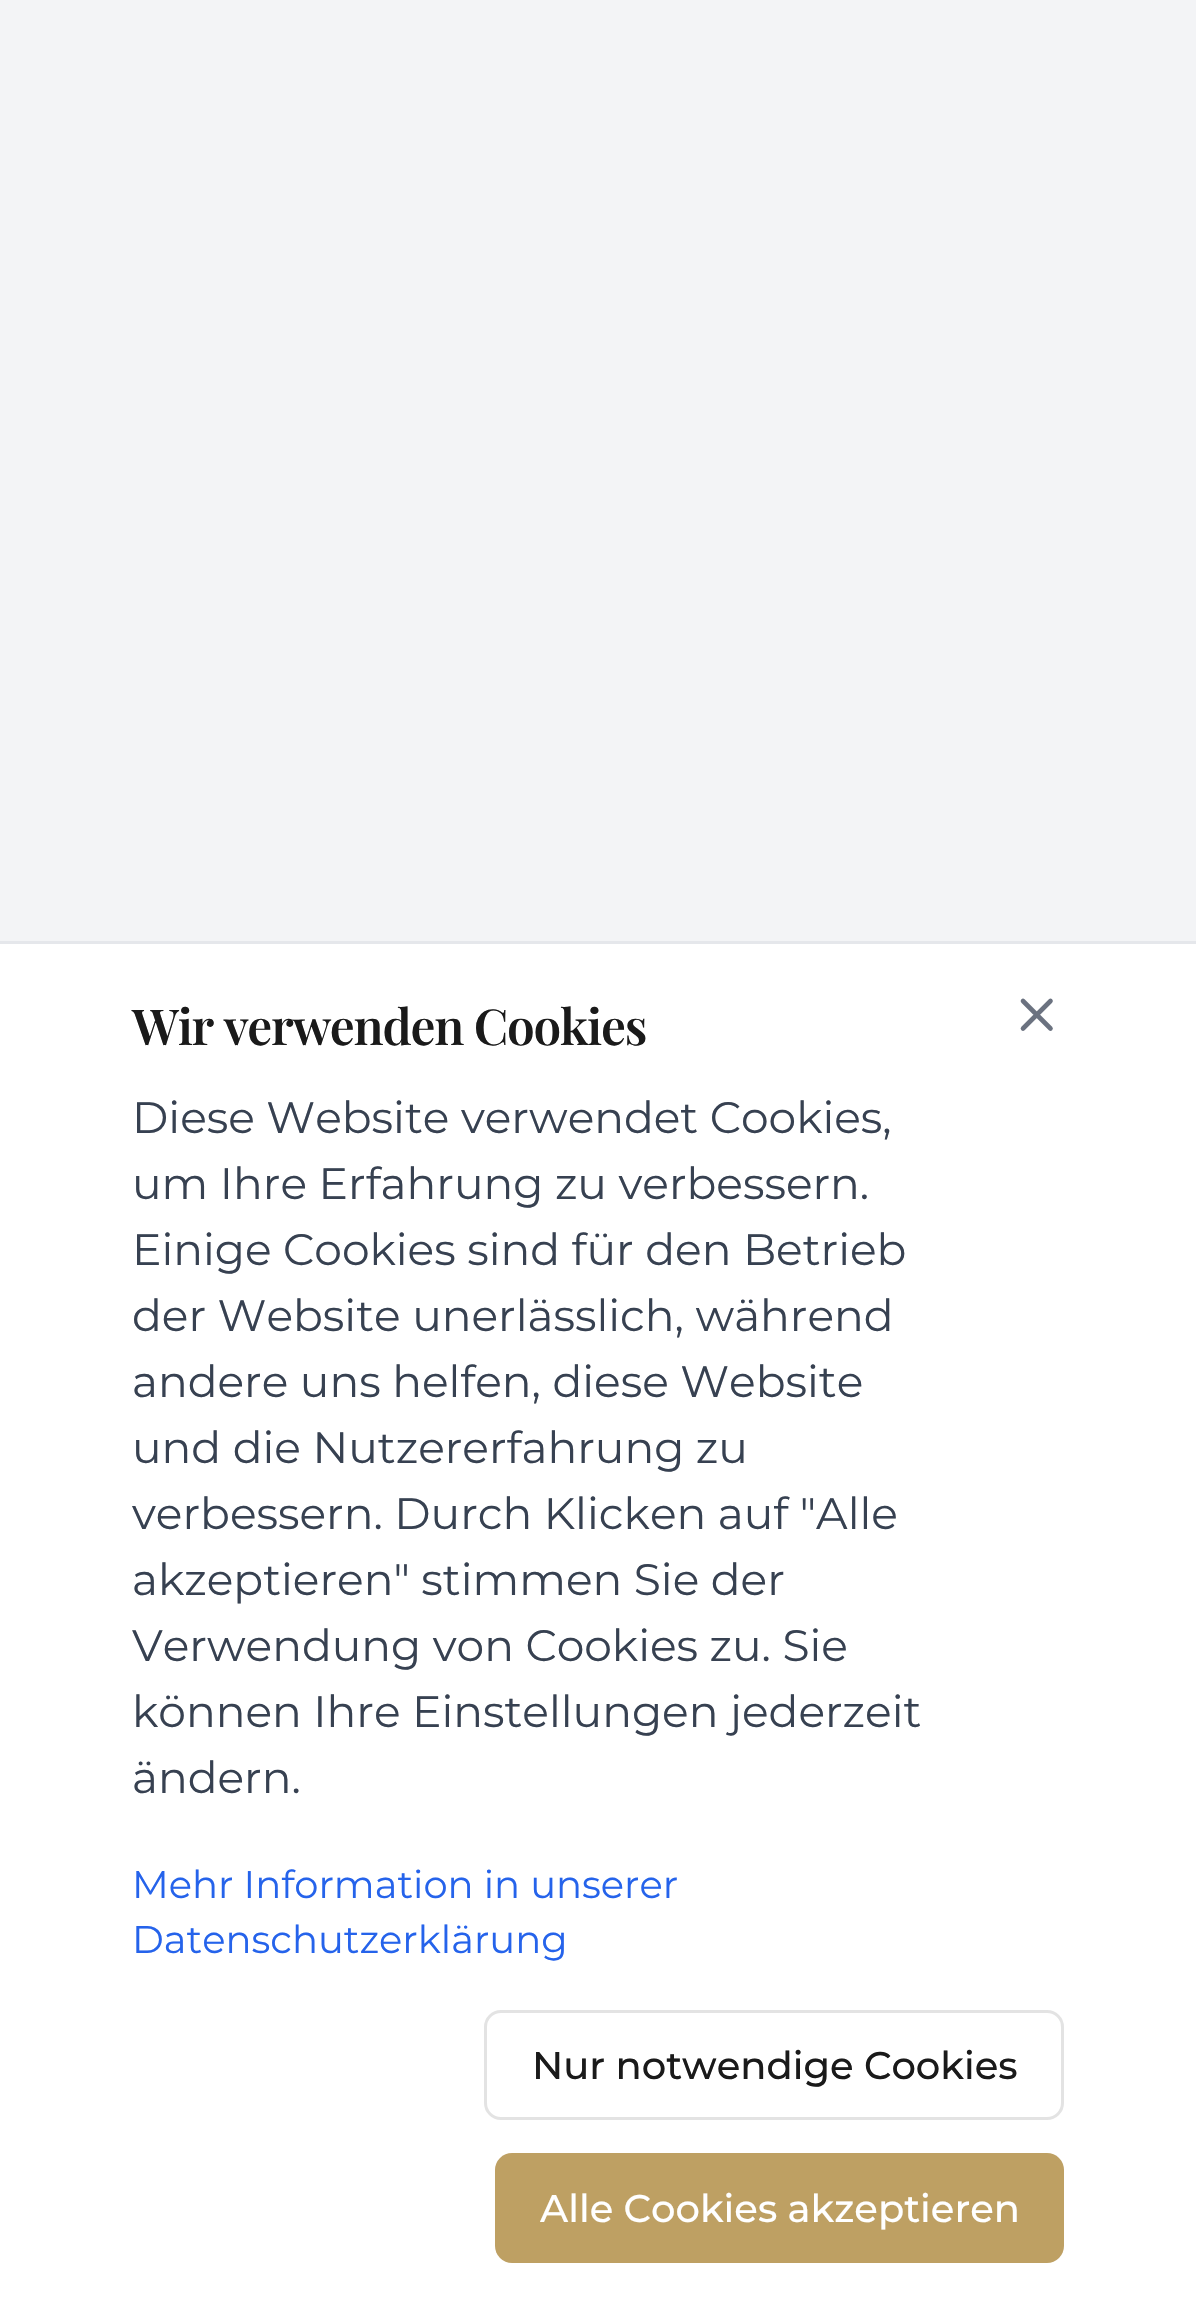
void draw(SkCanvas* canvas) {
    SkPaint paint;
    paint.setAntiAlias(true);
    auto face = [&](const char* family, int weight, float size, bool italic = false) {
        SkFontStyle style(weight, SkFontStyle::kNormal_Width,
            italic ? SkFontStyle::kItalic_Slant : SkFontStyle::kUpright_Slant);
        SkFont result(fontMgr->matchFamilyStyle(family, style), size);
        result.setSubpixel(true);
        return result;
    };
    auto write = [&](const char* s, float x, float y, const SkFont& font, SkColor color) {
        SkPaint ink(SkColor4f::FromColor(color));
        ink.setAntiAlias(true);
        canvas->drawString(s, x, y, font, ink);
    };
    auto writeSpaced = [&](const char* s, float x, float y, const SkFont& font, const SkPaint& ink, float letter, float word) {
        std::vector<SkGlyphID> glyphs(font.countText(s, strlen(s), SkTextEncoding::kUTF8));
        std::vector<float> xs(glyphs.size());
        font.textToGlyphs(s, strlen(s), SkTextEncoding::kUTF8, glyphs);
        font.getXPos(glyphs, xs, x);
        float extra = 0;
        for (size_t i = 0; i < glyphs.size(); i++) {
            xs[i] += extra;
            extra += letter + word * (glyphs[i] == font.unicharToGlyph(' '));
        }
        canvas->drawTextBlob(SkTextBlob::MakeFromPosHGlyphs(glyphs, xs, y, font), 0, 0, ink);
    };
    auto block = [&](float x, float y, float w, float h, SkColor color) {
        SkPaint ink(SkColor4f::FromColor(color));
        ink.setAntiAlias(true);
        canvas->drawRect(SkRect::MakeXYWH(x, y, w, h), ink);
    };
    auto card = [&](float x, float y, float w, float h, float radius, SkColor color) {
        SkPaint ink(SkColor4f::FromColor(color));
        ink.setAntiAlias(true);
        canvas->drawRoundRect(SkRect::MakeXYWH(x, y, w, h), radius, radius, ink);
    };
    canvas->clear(SkColorSetRGB(243, 244, 246));
    block(0, 944, 1196, 1362, SK_ColorWHITE);
    block(0, 941, 1196, 3, SkColorSetRGB(229, 231, 235));
    auto kFont1 = face("Playfair Display", 600, 49.5f);
    paint.setColor(SkColorSetRGB(26, 26, 26));
    writeSpaced("Wir verwenden Cookies", 132, 1045, kFont1, paint, -1.25f, 0);
    auto kFont2 = face("Montserrat", 400, 44);
    write("Diese Website verwendet Cookies,", 132, 1133, kFont2, SkColorSetRGB(55, 65, 81));
    write("um Ihre Erfahrung zu verbessern.", 132, 1199, kFont2, SkColorSetRGB(55, 65, 81));
    write("Einige Cookies sind für den Betrieb", 132, 1265, kFont2, SkColorSetRGB(55, 65, 81));
    write("der Website unerlässlich, während", 132, 1331, kFont2, SkColorSetRGB(55, 65, 81));
    write("andere uns helfen, diese Website", 132, 1397, kFont2, SkColorSetRGB(55, 65, 81));
    write("und die Nutzererfahrung zu", 132, 1463, kFont2, SkColorSetRGB(55, 65, 81));
    write("verbessern. Durch Klicken auf \"Alle", 132, 1529, kFont2, SkColorSetRGB(55, 65, 81));
    write("akzeptieren\" stimmen Sie der", 132, 1595, kFont2, SkColorSetRGB(55, 65, 81));
    write("Verwendung von Cookies zu. Sie", 132, 1661, kFont2, SkColorSetRGB(55, 65, 81));
    write("können Ihre Einstellungen jederzeit", 132, 1727, kFont2, SkColorSetRGB(55, 65, 81));
    write("ändern.", 132, 1793, kFont2, SkColorSetRGB(55, 65, 81));
    auto kFont3 = face("Montserrat", 400, 38.5f);
    write("Mehr Information in unserer", 132, 1898, kFont3, SkColorSetRGB(37, 99, 235));
    write("Datenschutzerklärung", 132, 1953, kFont3, SkColorSetRGB(37, 99, 235));
    paint.setStyle(SkPaint::kStroke_Style);
    paint.setStrokeWidth(4.6f);
    paint.setStrokeCap(SkPaint::kRound_Cap);
    paint.setStrokeJoin(SkPaint::kRound_Join);
    paint.setColor(SkColorSetRGB(107, 114, 128));
    canvas->drawPath(SkPathBuilder().moveTo(1050.5f, 1001).lineTo(1023, 1028.5f).moveTo(1023, 1001).lineTo(1050.5f, 1028.5f).detach(), paint);
    paint.setStrokeWidth(3);
    paint.setStrokeCap(SkPaint::kButt_Cap);
    paint.setStrokeJoin(SkPaint::kMiter_Join);
    paint.setColor(SkColorSetRGB(227, 227, 227));
    canvas->drawRoundRect(SkRect::MakeXYWH(485.5f, 2011.5f, 577, 107), 15.5f, 15.5f, paint);
    auto kFont4 = face("Montserrat", 500, 38.5f);
    write("Nur notwendige Cookies", 532, 2079, kFont4, SkColorSetRGB(26, 26, 26));
    card(495, 2153, 569, 110, 17, SkColorSetRGB(190, 160, 99));
    write("Alle Cookies akzeptieren", 540, 2222, kFont4, SK_ColorWHITE);
}
